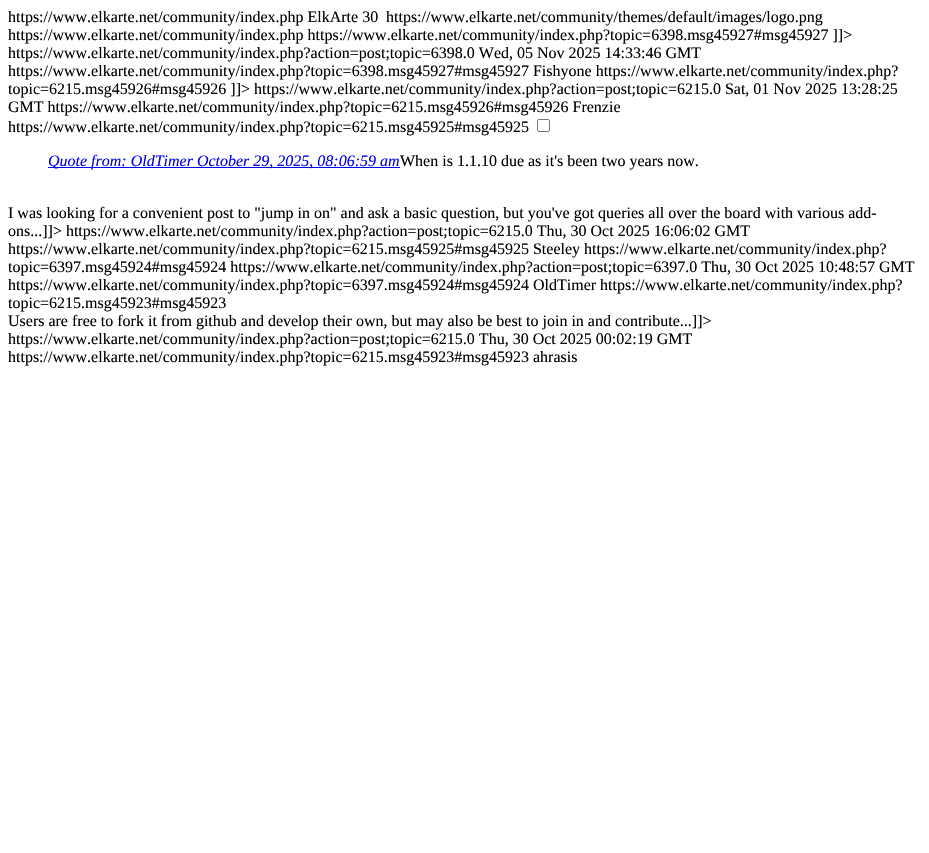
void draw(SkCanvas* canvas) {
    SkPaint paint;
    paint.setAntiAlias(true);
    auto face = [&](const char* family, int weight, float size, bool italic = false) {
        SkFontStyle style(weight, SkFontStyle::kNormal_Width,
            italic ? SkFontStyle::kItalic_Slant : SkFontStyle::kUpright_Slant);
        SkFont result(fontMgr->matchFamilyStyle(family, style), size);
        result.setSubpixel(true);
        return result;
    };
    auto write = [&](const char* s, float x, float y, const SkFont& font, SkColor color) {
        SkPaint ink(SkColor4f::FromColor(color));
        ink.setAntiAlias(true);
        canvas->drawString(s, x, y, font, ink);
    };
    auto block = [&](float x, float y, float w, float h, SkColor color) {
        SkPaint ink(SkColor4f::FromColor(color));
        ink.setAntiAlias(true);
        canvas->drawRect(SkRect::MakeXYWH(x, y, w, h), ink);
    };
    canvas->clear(SK_ColorWHITE);
    auto kFont1 = face("Liberation Serif", 400, 16);
    write("https://www.elkarte.net/community/index.php ElkArte 30", 8, 22, kFont1, SK_ColorBLACK);
    write("https://www.elkarte.net/community/themes/default/images/logo.png", 386, 22, kFont1, SK_ColorBLACK);
    write("https://www.elkarte.net/community/index.php https://www.elkarte.net/community/index.php?topic=6398.msg45927#msg45927 ]]>", 8, 40, kFont1, SK_ColorBLACK);
    write("https://www.elkarte.net/community/index.php?action=post;topic=6398.0 Wed, 05 Nov 2025 14:33:46 GMT", 8, 58, kFont1, SK_ColorBLACK);
    write("https://www.elkarte.net/community/index.php?topic=6398.msg45927#msg45927 Fishyone https://www.elkarte.net/community/index.php?", 8, 76, kFont1, SK_ColorBLACK);
    write("topic=6215.msg45926#msg45926 ]]> https://www.elkarte.net/community/index.php?action=post;topic=6215.0 Sat, 01 Nov 2025 13:28:25", 8, 94, kFont1, SK_ColorBLACK);
    write("GMT https://www.elkarte.net/community/index.php?topic=6215.msg45926#msg45926 Frenzie", 8, 112, kFont1, SK_ColorBLACK);
    write("https://www.elkarte.net/community/index.php?topic=6215.msg45925#msg45925", 8, 132, kFont1, SK_ColorBLACK);
    paint.setStyle(SkPaint::kStroke_Style);
    paint.setStrokeWidth(1);
    paint.setColor(SkColorSetRGB(118, 118, 118));
    canvas->drawRoundRect(SkRect::MakeXYWH(537.5f, 119.5f, 12, 12), 1.5f, 1.5f, paint);
    block(48, 167, 352, 1, SkColorSetRGB(0, 0, 238));
    auto kFont2 = face("Liberation Serif", 400, 16, true);
    write("Quote from: OldTimer October 29, 2025, 08:06:59 am", 48, 166, kFont2, SkColorSetRGB(0, 0, 238));
    write("When is 1.1.10 due as it's been two years now.", 400, 166, kFont1, SK_ColorBLACK);
    write("I was looking for a convenient post to \"jump in on\" and ask a basic question, but you've got queries all over the board with various add-", 8, 218, kFont1, SK_ColorBLACK);
    write("ons...]]> https://www.elkarte.net/community/index.php?action=post;topic=6215.0 Thu, 30 Oct 2025 16:06:02 GMT", 8, 236, kFont1, SK_ColorBLACK);
    write("https://www.elkarte.net/community/index.php?topic=6215.msg45925#msg45925 Steeley https://www.elkarte.net/community/index.php?", 8, 254, kFont1, SK_ColorBLACK);
    write("topic=6397.msg45924#msg45924 https://www.elkarte.net/community/index.php?action=post;topic=6397.0 Thu, 30 Oct 2025 10:48:57 GMT", 8, 272, kFont1, SK_ColorBLACK);
    write("https://www.elkarte.net/community/index.php?topic=6397.msg45924#msg45924 OldTimer https://www.elkarte.net/community/index.php?", 8, 290, kFont1, SK_ColorBLACK);
    write("topic=6215.msg45923#msg45923", 8, 308, kFont1, SK_ColorBLACK);
    write("Users are free to fork it from github and develop their own, but may also be best to join in and contribute...]]>", 8, 326, kFont1, SK_ColorBLACK);
    write("https://www.elkarte.net/community/index.php?action=post;topic=6215.0 Thu, 30 Oct 2025 00:02:19 GMT", 8, 344, kFont1, SK_ColorBLACK);
    write("https://www.elkarte.net/community/index.php?topic=6215.msg45923#msg45923 ahrasis", 8, 362, kFont1, SK_ColorBLACK);
}
